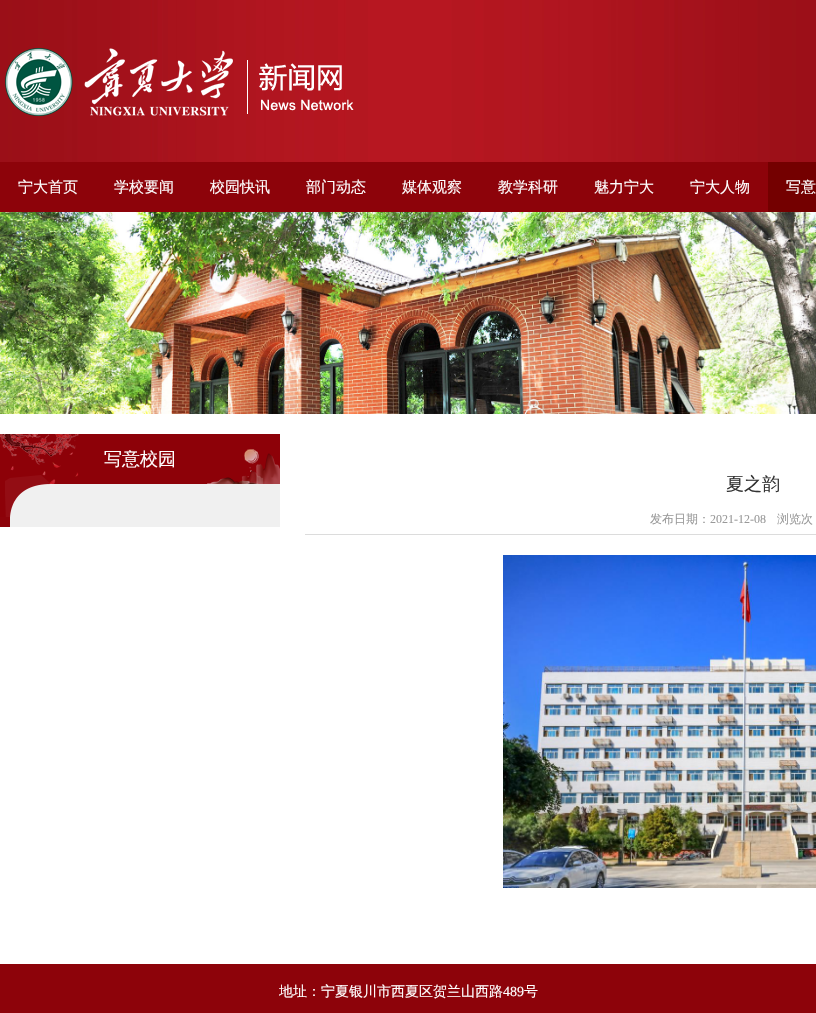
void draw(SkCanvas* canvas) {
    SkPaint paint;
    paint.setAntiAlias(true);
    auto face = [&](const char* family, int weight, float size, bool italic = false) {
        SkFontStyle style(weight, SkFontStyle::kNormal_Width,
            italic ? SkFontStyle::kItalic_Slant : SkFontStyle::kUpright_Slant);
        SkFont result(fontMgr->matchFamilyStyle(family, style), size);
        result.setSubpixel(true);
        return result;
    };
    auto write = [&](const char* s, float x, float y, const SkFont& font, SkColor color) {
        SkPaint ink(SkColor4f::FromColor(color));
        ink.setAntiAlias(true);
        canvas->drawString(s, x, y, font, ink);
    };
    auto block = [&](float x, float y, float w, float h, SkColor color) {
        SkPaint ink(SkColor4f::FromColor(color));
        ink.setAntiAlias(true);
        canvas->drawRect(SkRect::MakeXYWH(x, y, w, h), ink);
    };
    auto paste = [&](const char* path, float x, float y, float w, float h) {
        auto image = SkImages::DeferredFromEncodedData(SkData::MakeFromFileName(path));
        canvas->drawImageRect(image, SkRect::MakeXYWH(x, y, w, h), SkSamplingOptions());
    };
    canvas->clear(SK_ColorWHITE);
    paste("pic1.png", 0, 0, 816, 162);
    paste("pic2.png", 5, 48, 349, 68);
    block(0, 162, 768, 50, SkColorSetRGB(141, 3, 10));
    auto kFont1 = face("WenQuanYi Zen Hei", 500, 15);
    write("宁大首页", 18, 192, kFont1, SK_ColorWHITE);
    write("学校要闻", 114, 192, kFont1, SK_ColorWHITE);
    write("校园快讯", 210, 192, kFont1, SK_ColorWHITE);
    write("部门动态", 306, 192, kFont1, SK_ColorWHITE);
    write("媒体观察", 402, 192, kFont1, SK_ColorWHITE);
    write("教学科研", 498, 192, kFont1, SK_ColorWHITE);
    write("魅力宁大", 594, 192, kFont1, SK_ColorWHITE);
    write("宁大人物", 690, 192, kFont1, SK_ColorWHITE);
    block(768, 162, 48, 50, SkColorSetRGB(116, 0, 0));
    write("写意", 786, 192, kFont1, SK_ColorWHITE);
    paste("pic3.png", 0, 212, 816, 202);
    paste("pic4.png", 0, 434, 280, 83);
    auto kFont2 = face("WenQuanYi Zen Hei", 500, 18);
    write("写意校园", 104, 465, kFont2, SK_ColorWHITE);
    block(10, 517, 270, 10, SkColorSetRGB(240, 240, 240));
    block(0, 517, 10, 10, SkColorSetRGB(141, 3, 10));
    block(305, 534, 511, 1, SkColorSetRGB(220, 220, 220));
    write("夏之韵", 726, 490, kFont2, SkColorSetRGB(51, 51, 51));
    auto kFont3 = face("WenQuanYi Zen Hei", 500, 12);
    write("发布日期：", 650, 523, kFont3, SkColorSetRGB(153, 153, 153));
    auto kFont4 = face("Liberation Serif", 400, 12);
    write("2021-12-08", 710, 523, kFont4, SkColorSetRGB(153, 153, 153));
    write("浏览次", 777, 523, kFont3, SkColorSetRGB(153, 153, 153));
    paste("pic5.png", 503, 555, 313, 333);
    block(0, 964, 816, 49, SkColorSetRGB(141, 3, 10));
    auto kFont5 = face("WenQuanYi Zen Hei", 500, 14);
    write("地址：宁夏银川市西夏区贺兰山西路", 279, 996, kFont5, SK_ColorWHITE);
    auto kFont6 = face("Liberation Serif", 400, 14);
    write("489", 503, 996, kFont6, SK_ColorWHITE);
    write("号", 524, 996, kFont5, SK_ColorWHITE);
}
